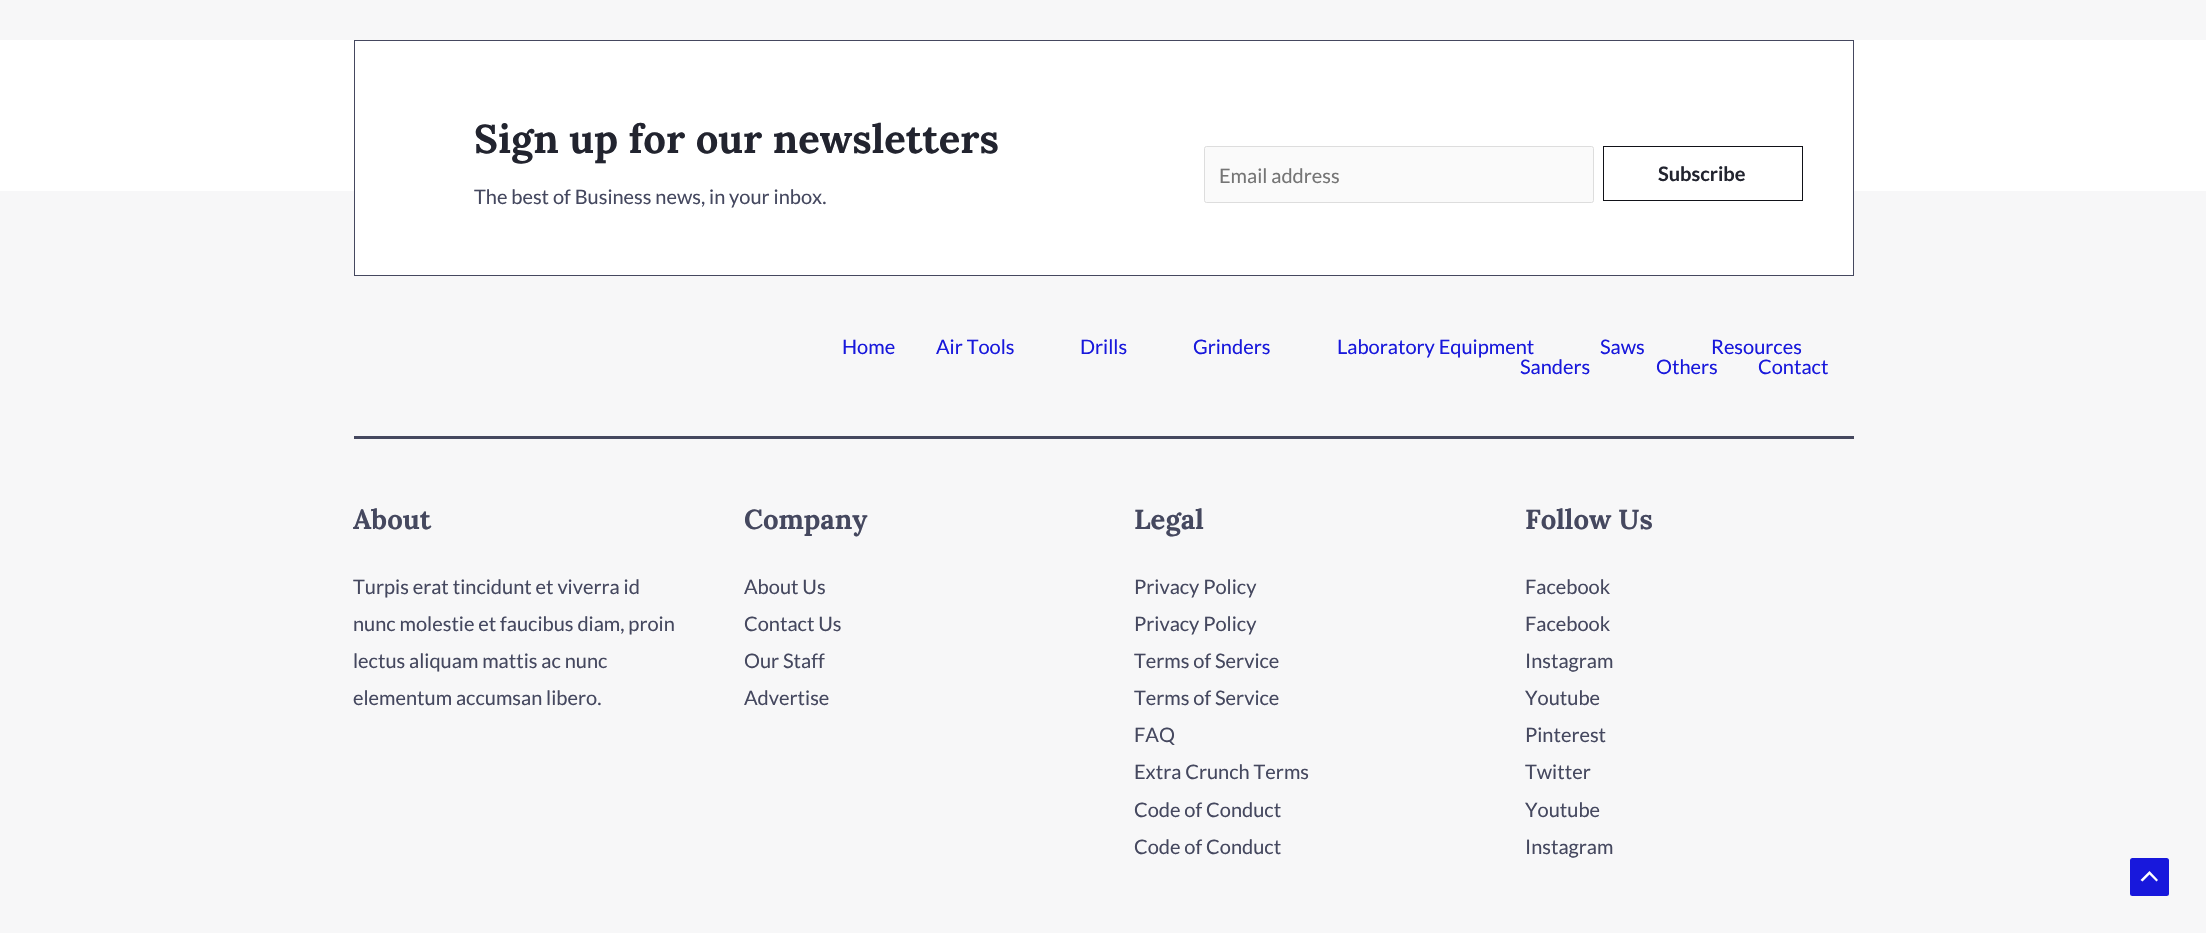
void draw(SkCanvas* canvas) {
    SkPaint paint;
    paint.setAntiAlias(true);
    auto face = [&](const char* family, int weight, float size, bool italic = false) {
        SkFontStyle style(weight, SkFontStyle::kNormal_Width,
            italic ? SkFontStyle::kItalic_Slant : SkFontStyle::kUpright_Slant);
        SkFont result(fontMgr->matchFamilyStyle(family, style), size);
        result.setSubpixel(true);
        return result;
    };
    auto write = [&](const char* s, float x, float y, const SkFont& font, SkColor color) {
        SkPaint ink(SkColor4f::FromColor(color));
        ink.setAntiAlias(true);
        canvas->drawString(s, x, y, font, ink);
    };
    auto block = [&](float x, float y, float w, float h, SkColor color) {
        SkPaint ink(SkColor4f::FromColor(color));
        ink.setAntiAlias(true);
        canvas->drawRect(SkRect::MakeXYWH(x, y, w, h), ink);
    };
    auto card = [&](float x, float y, float w, float h, float radius, SkColor color) {
        SkPaint ink(SkColor4f::FromColor(color));
        ink.setAntiAlias(true);
        canvas->drawRoundRect(SkRect::MakeXYWH(x, y, w, h), radius, radius, ink);
    };
    canvas->clear(SkColorSetRGB(247, 247, 248));
    block(0, 40, 2206, 151, SK_ColorWHITE);
    block(355, 191, 1498, 84, SK_ColorWHITE);
    paint.setStyle(SkPaint::kStroke_Style);
    paint.setStrokeWidth(1);
    paint.setColor(SkColorSetRGB(69, 72, 95));
    canvas->drawRect(SkRect::MakeXYWH(354.5f, 40.5f, 1499, 235), paint);
    auto kFont1 = face("Lora", 700, 40);
    write("Sign up for our newsletters", 474, 153, kFont1, SkColorSetRGB(34, 36, 47));
    auto kFont2 = face("Lato", 400, 20);
    write("The best of Business news, in your inbox.", 474, 204, kFont2, SkColorSetRGB(69, 72, 95));
    paint.setStyle(SkPaint::kFill_Style);
    paint.setColor(SkColorSetRGB(250, 250, 250));
    canvas->drawRoundRect(SkRect::MakeXYWH(1204.5f, 146.5f, 389, 56), 2, 2, paint);
    paint.setStyle(SkPaint::kStroke_Style);
    paint.setColor(SkColorSetRGB(221, 221, 221));
    canvas->drawRoundRect(SkRect::MakeXYWH(1204.5f, 146.5f, 389, 56), 2, 2, paint);
    write("Email address", 1219, 183, kFont2, SkColorSetRGB(117, 117, 117));
    paint.setColor(SkColorSetRGB(17, 18, 24));
    canvas->drawRect(SkRect::MakeXYWH(1603.5f, 146.5f, 199, 54), paint);
    auto kFont3 = face("Lato", 700, 20);
    write("Subscribe", 1658, 181, kFont3, SkColorSetRGB(34, 36, 47));
    block(354, 436, 1500, 3, SkColorSetRGB(69, 72, 95));
    write("Home", 842, 354, kFont2, SkColorSetRGB(24, 24, 220));
    write("Air Tools", 936, 354, kFont2, SkColorSetRGB(24, 24, 220));
    write("Drills", 1080, 354, kFont2, SkColorSetRGB(24, 24, 220));
    write("Grinders", 1193, 354, kFont2, SkColorSetRGB(24, 24, 220));
    write("Laboratory Equipment", 1337, 354, kFont2, SkColorSetRGB(24, 24, 220));
    write("Saws", 1600, 354, kFont2, SkColorSetRGB(24, 24, 220));
    write("Resources", 1711, 354, kFont2, SkColorSetRGB(24, 24, 220));
    write("Sanders", 1520, 374, kFont2, SkColorSetRGB(24, 24, 220));
    write("Others", 1656, 374, kFont2, SkColorSetRGB(24, 24, 220));
    write("Contact", 1758, 374, kFont2, SkColorSetRGB(24, 24, 220));
    auto kFont4 = face("Lora", 700, 27.5f);
    write("About", 353, 529, kFont4, SkColorSetRGB(69, 72, 95));
    write("Turpis erat tincidunt et viverra id", 353, 594, kFont2, SkColorSetRGB(69, 72, 95));
    write("nunc molestie et faucibus diam, proin", 353, 631, kFont2, SkColorSetRGB(69, 72, 95));
    write("lectus aliquam mattis ac nunc", 353, 668, kFont2, SkColorSetRGB(69, 72, 95));
    write("elementum accumsan libero.", 353, 705, kFont2, SkColorSetRGB(69, 72, 95));
    write("Company", 744, 529, kFont4, SkColorSetRGB(69, 72, 95));
    write("About Us", 744, 594, kFont2, SkColorSetRGB(69, 72, 95));
    write("Contact Us", 744, 631, kFont2, SkColorSetRGB(69, 72, 95));
    write("Our Staff", 744, 668, kFont2, SkColorSetRGB(69, 72, 95));
    write("Advertise", 744, 705, kFont2, SkColorSetRGB(69, 72, 95));
    write("Legal", 1134, 529, kFont4, SkColorSetRGB(69, 72, 95));
    write("Privacy Policy", 1134, 594, kFont2, SkColorSetRGB(69, 72, 95));
    write("Privacy Policy", 1134, 631, kFont2, SkColorSetRGB(69, 72, 95));
    write("Terms of Service", 1134, 668, kFont2, SkColorSetRGB(69, 72, 95));
    write("Terms of Service", 1134, 705, kFont2, SkColorSetRGB(69, 72, 95));
    write("FAQ", 1134, 742, kFont2, SkColorSetRGB(69, 72, 95));
    write("Extra Crunch Terms", 1134, 779, kFont2, SkColorSetRGB(69, 72, 95));
    write("Code of Conduct", 1134, 817, kFont2, SkColorSetRGB(69, 72, 95));
    write("Code of Conduct", 1134, 854, kFont2, SkColorSetRGB(69, 72, 95));
    write("Follow Us", 1525, 529, kFont4, SkColorSetRGB(69, 72, 95));
    write("Facebook", 1525, 594, kFont2, SkColorSetRGB(69, 72, 95));
    write("Facebook", 1525, 631, kFont2, SkColorSetRGB(69, 72, 95));
    write("Instagram", 1525, 668, kFont2, SkColorSetRGB(69, 72, 95));
    write("Youtube", 1525, 705, kFont2, SkColorSetRGB(69, 72, 95));
    write("Pinterest", 1525, 742, kFont2, SkColorSetRGB(69, 72, 95));
    write("Twitter", 1525, 779, kFont2, SkColorSetRGB(69, 72, 95));
    write("Youtube", 1525, 817, kFont2, SkColorSetRGB(69, 72, 95));
    write("Instagram", 1525, 854, kFont2, SkColorSetRGB(69, 72, 95));
    card(2130, 858, 39, 38, 2.5f, SkColorSetRGB(24, 24, 220));
    paint.setStyle(SkPaint::kFill_Style);
    paint.setColor(SK_ColorWHITE);
    canvas->drawPath(SkPathBuilder().moveTo(2158, 880).lineTo(2149.5f, 871).lineTo(2140.5f, 880).lineTo(2142.5f, 881.5f).lineTo(2149.5f, 874.5f).lineTo(2156.5f, 881.5f).close().detach(), paint);
}
